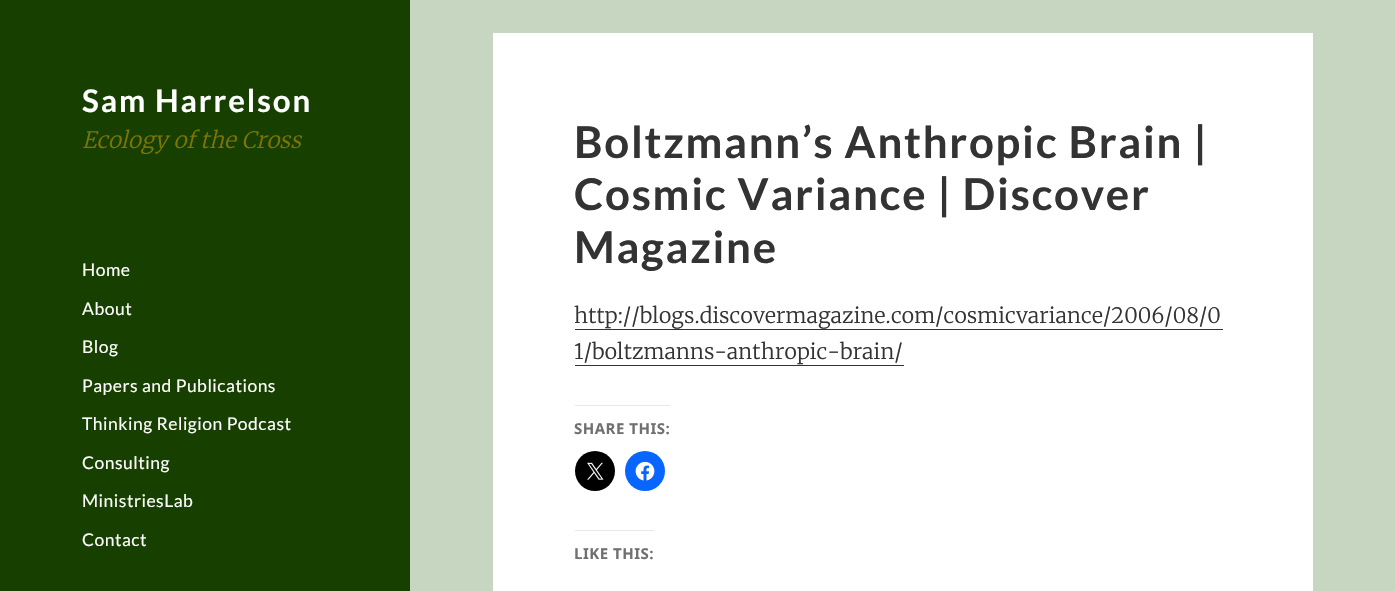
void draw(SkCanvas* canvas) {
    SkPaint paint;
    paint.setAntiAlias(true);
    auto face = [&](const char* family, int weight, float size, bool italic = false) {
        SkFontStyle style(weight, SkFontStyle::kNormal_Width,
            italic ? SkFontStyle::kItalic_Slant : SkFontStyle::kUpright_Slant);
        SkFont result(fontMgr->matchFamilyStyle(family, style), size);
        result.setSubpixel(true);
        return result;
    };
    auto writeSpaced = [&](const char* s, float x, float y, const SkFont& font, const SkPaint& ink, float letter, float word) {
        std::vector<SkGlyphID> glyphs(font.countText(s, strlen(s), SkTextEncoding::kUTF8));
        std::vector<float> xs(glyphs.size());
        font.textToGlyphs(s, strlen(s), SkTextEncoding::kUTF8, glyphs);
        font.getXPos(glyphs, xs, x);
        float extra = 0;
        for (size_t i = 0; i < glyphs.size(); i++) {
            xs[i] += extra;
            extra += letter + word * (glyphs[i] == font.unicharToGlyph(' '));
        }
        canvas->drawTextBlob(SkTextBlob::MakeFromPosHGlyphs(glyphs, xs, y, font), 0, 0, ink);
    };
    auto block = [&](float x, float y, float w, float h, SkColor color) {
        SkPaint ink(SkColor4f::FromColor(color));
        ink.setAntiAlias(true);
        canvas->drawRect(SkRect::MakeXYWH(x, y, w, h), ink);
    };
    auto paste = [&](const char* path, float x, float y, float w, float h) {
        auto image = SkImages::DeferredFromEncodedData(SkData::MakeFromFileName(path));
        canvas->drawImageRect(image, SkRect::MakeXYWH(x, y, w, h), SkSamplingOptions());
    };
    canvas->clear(SkColorSetRGB(199, 214, 192));
    block(0, 0, 410, 591, SkColorSetRGB(22, 63, 0));
    auto kFont1 = face("Lato", 700, 31.25f);
    paint.setColor(SK_ColorWHITE);
    writeSpaced("Sam Harrelson", 82, 112, kFont1, paint, 1.9f, 0);
    auto kFont2 = face("Merriweather", 300, 22.5f, true);
    paint.setColor(SkColorSetRGB(126, 116, 0));
    writeSpaced("Ecology of the Cross", 82, 148, kFont2, paint, 0.2f, 0);
    auto kFont3 = face("Lato", 400, 17.5f);
    paint.setColor(SK_ColorWHITE);
    writeSpaced("Home", 82, 276, kFont3, paint, 0.5f, 0);
    writeSpaced("About", 82, 315, kFont3, paint, 0.5f, 0);
    writeSpaced("Blog", 82, 353, kFont3, paint, 0.5f, 0);
    writeSpaced("Papers and Publications", 82, 392, kFont3, paint, 0.5f, 0);
    writeSpaced("Thinking Religion Podcast", 82, 430, kFont3, paint, 0.5f, 0);
    writeSpaced("Consulting", 82, 469, kFont3, paint, 0.5f, 0);
    writeSpaced("MinistriesLab", 82, 507, kFont3, paint, 0.5f, 0);
    writeSpaced("Contact", 82, 546, kFont3, paint, 0.5f, 0);
    block(493, 33, 820, 558, SK_ColorWHITE);
    auto kFont4 = face("Lato", 700, 43.75f);
    paint.setColor(SkColorSetRGB(51, 51, 51));
    writeSpaced("Boltzmann’s Anthropic Brain |", 574, 158, kFont4, paint, 1.75f, 0);
    writeSpaced("Cosmic Variance | Discover", 574, 210, kFont4, paint, 1.75f, 0);
    writeSpaced("Magazine", 574, 263, kFont4, paint, 1.75f, 0);
    auto kFont5 = face("Merriweather", 300, 21.25f);
    writeSpaced("http://blogs.discovermagazine.com/cosmicvariance/2006/08/0", 574, 323, kFont5, paint, 0.2f, 0);
    block(575, 329, 648, 1, SkColorSetRGB(51, 51, 51));
    writeSpaced("1/boltzmanns-anthropic-brain/", 574, 359, kFont5, paint, 0.2f, 0);
    block(575, 365, 329, 1, SkColorSetRGB(51, 51, 51));
    block(575, 405, 95, 1, SkColorSetRGB(231, 231, 232));
    auto kFont6 = face("Noto Sans", 700, 15);
    paint.setColor(SkColorSetRGB(112, 112, 112));
    writeSpaced("SHARE THIS:", 574, 434, kFont6, paint, 0.5f, 0);
    paint.setColor(SK_ColorBLACK);
    canvas->drawCircle(595, 471, 20, paint);
    paste("pic1.png", 587, 462, 17, 18);
    paint.setColor(SkColorSetRGB(8, 102, 255));
    canvas->drawCircle(645, 471, 20, paint);
    paste("pic2.png", 635, 461, 20, 20);
    block(575, 530, 79, 1, SkColorSetRGB(231, 231, 232));
    paint.setColor(SkColorSetRGB(112, 112, 112));
    writeSpaced("LIKE THIS:", 574, 559, kFont6, paint, 0.5f, 0);
}
